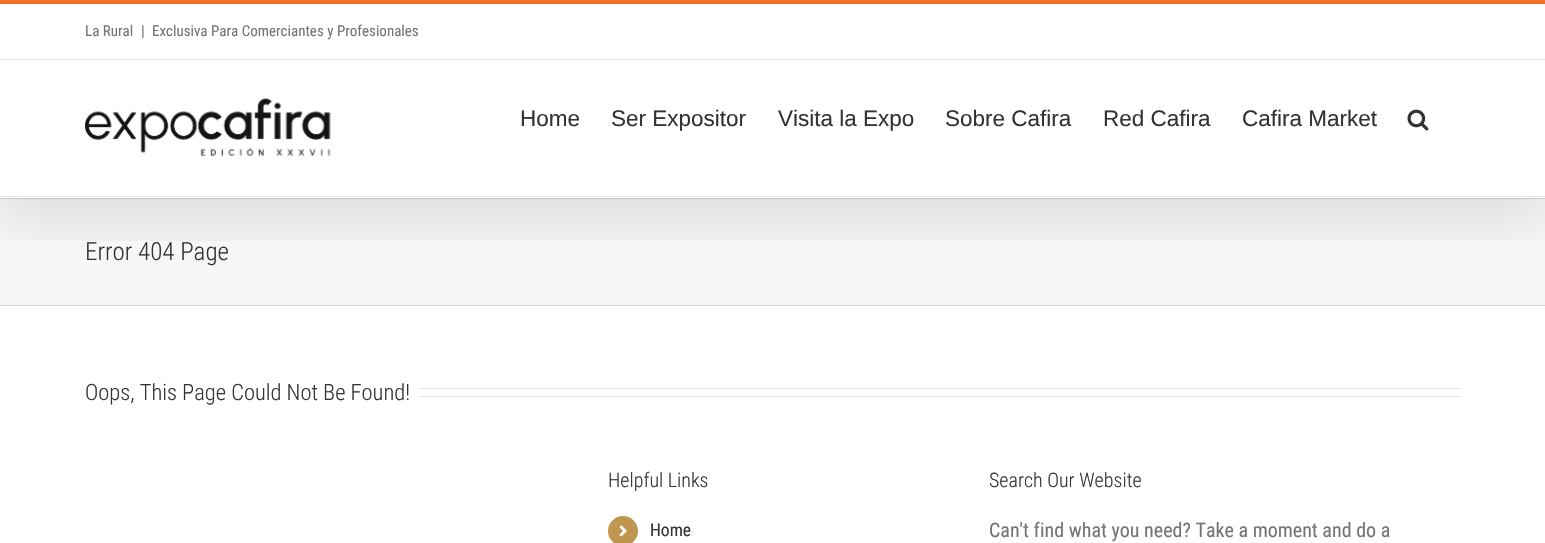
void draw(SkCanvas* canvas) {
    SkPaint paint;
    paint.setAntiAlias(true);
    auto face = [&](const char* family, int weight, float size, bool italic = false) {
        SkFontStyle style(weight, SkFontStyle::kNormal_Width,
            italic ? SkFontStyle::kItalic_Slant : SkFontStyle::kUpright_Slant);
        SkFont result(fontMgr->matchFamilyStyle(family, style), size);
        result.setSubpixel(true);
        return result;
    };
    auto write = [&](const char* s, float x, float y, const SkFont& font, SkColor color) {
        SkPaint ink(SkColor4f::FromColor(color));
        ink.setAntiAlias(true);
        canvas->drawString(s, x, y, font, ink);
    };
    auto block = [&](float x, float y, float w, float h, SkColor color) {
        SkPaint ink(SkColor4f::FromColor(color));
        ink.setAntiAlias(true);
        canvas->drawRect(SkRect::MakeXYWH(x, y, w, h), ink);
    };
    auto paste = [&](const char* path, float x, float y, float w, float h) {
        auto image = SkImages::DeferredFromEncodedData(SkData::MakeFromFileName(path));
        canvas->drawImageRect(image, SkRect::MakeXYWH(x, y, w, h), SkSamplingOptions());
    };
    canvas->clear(SK_ColorWHITE);
    block(0, 199, 1545, 106, SkColorSetRGB(246, 246, 246));
    block(0, 198, 1545, 1, SkColorSetRGB(210, 211, 212));
    canvas->save();
    canvas->clipRect(SkRect::MakeXYWH(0, 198, 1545, 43));
    paint.setColor(SkColorSetARGB(36, 0, 0, 0));
    paint.setMaskFilter(SkMaskFilter::MakeBlur(kNormal_SkBlurStyle, 31));
    canvas->drawRect(SkRect::MakeXYWH(3, 15, 1540, 193), paint);
    paint.setMaskFilter(nullptr);
    canvas->restore();
    block(0, 0, 1545, 4, SkColorSetRGB(243, 112, 36));
    block(0, 59, 1545, 1, SkColorSetRGB(229, 229, 229));
    auto kFont1 = face("Roboto Condensed", 400, 15);
    write("La Rural", 85, 36, kFont1, SkColorSetRGB(116, 116, 116));
    write("|", 141, 36, kFont1, SkColorSetRGB(116, 116, 116));
    write("Exclusiva Para Comerciantes y Profesionales", 152, 36, kFont1, SkColorSetRGB(116, 116, 116));
    block(0, 197, 1545, 1, SK_ColorWHITE);
    block(0, 196, 1545, 1, SkColorSetRGB(229, 229, 229));
    paste("pic1.png", 85, 98, 246, 59);
    auto kFont2 = face("Liberation Sans", 400, 22.5f);
    write("Home", 520, 126, kFont2, SkColorSetRGB(51, 51, 51));
    write("Ser Expositor", 611, 126, kFont2, SkColorSetRGB(51, 51, 51));
    write("Visita la Expo", 778, 126, kFont2, SkColorSetRGB(51, 51, 51));
    write("Sobre Cafira", 945, 126, kFont2, SkColorSetRGB(51, 51, 51));
    write("Red Cafira", 1103, 126, kFont2, SkColorSetRGB(51, 51, 51));
    write("Cafira Market", 1242, 126, kFont2, SkColorSetRGB(51, 51, 51));
    paste("pic2.png", 1407, 109, 22, 22);
    block(0, 305, 1545, 1, SkColorSetRGB(210, 211, 212));
    auto kFont3 = face("Roboto Condensed", 300, 25);
    write("Error 404 Page", 85, 260, kFont3, SkColorSetRGB(51, 51, 51));
    auto kFont4 = face("Roboto Condensed", 300, 22.5f);
    write("Oops, This Page Could Not Be Found!", 85, 400, kFont4, SkColorSetRGB(51, 51, 51));
    block(420, 388, 1040, 1, SkColorSetRGB(224, 222, 222));
    block(420, 396, 1040, 1, SkColorSetRGB(224, 222, 222));
    auto kFont5 = face("Roboto Condensed", 300, 20);
    write("Helpful Links", 608, 487, kFont5, SkColorSetRGB(51, 51, 51));
    paint.setColor(SkColorSetRGB(192, 150, 79));
    canvas->drawCircle(623, 531, 15, paint);
    paste("pic3.png", 619, 525, 8, 12);
    auto kFont6 = face("Roboto Condensed", 400, 17.5f);
    write("Home", 650, 536, kFont6, SkColorSetRGB(51, 51, 51));
    write("Search Our Website", 989, 487, kFont5, SkColorSetRGB(51, 51, 51));
    auto kFont7 = face("Roboto Condensed", 400, 20);
    write("Can't find what you need? Take a moment and do a", 989, 537, kFont7, SkColorSetRGB(116, 116, 116));
}
